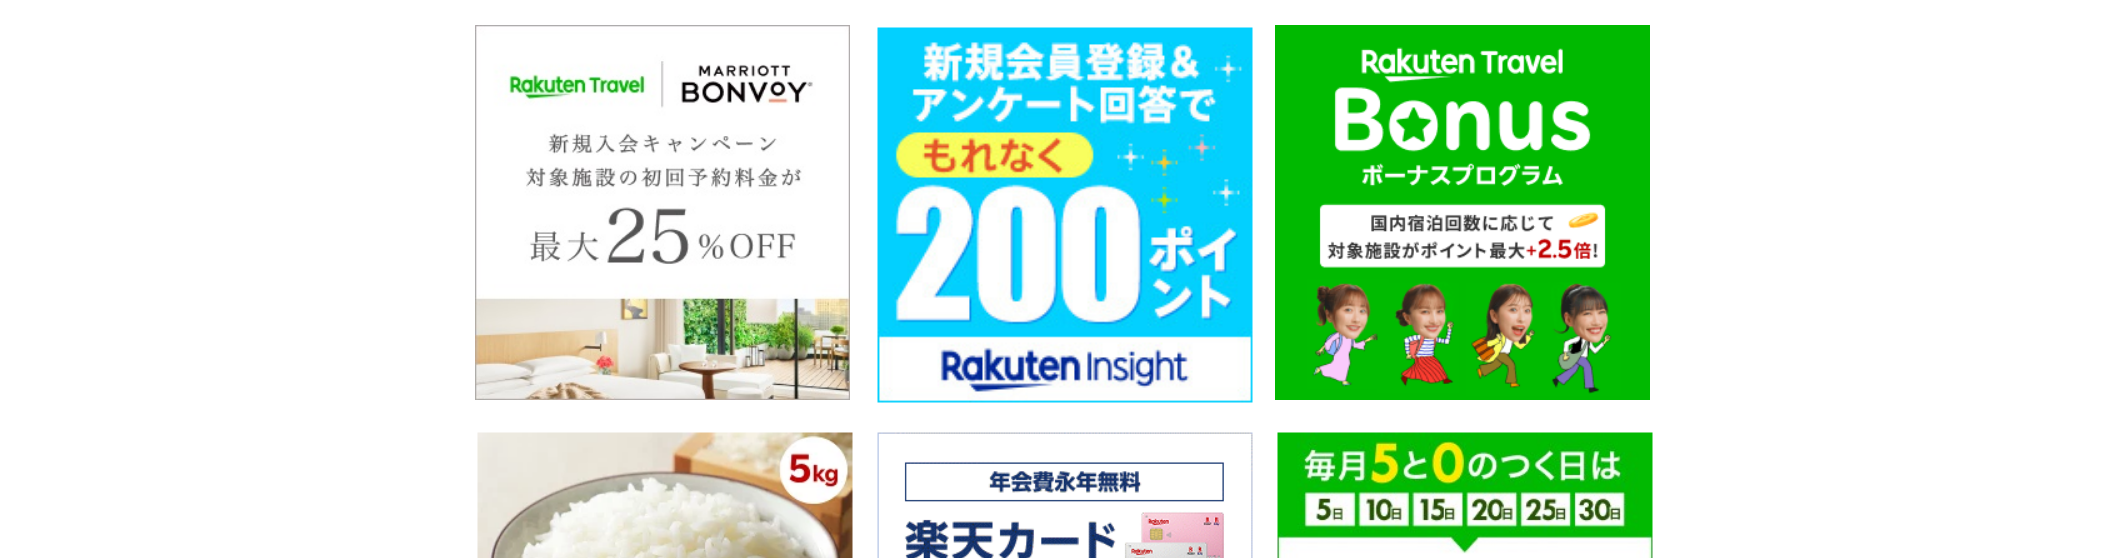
void draw(SkCanvas* canvas) {
    SkPaint paint;
    paint.setAntiAlias(true);
    auto paste = [&](const char* path, float x, float y, float w, float h) {
        auto image = SkImages::DeferredFromEncodedData(SkData::MakeFromFileName(path));
        canvas->drawImageRect(image, SkRect::MakeXYWH(x, y, w, h), SkSamplingOptions());
    };
    canvas->clear(SK_ColorWHITE);
    paste("pic1.png", 475, 25, 375, 375);
    paste("pic2.png", 877, 27, 376, 376);
    paste("pic3.png", 1275, 25, 375, 375);
    paste("pic4.png", 477, 432, 376, 126);
    paste("pic5.png", 877, 432, 376, 126);
    paste("pic6.png", 1277, 432, 376, 126);
}
